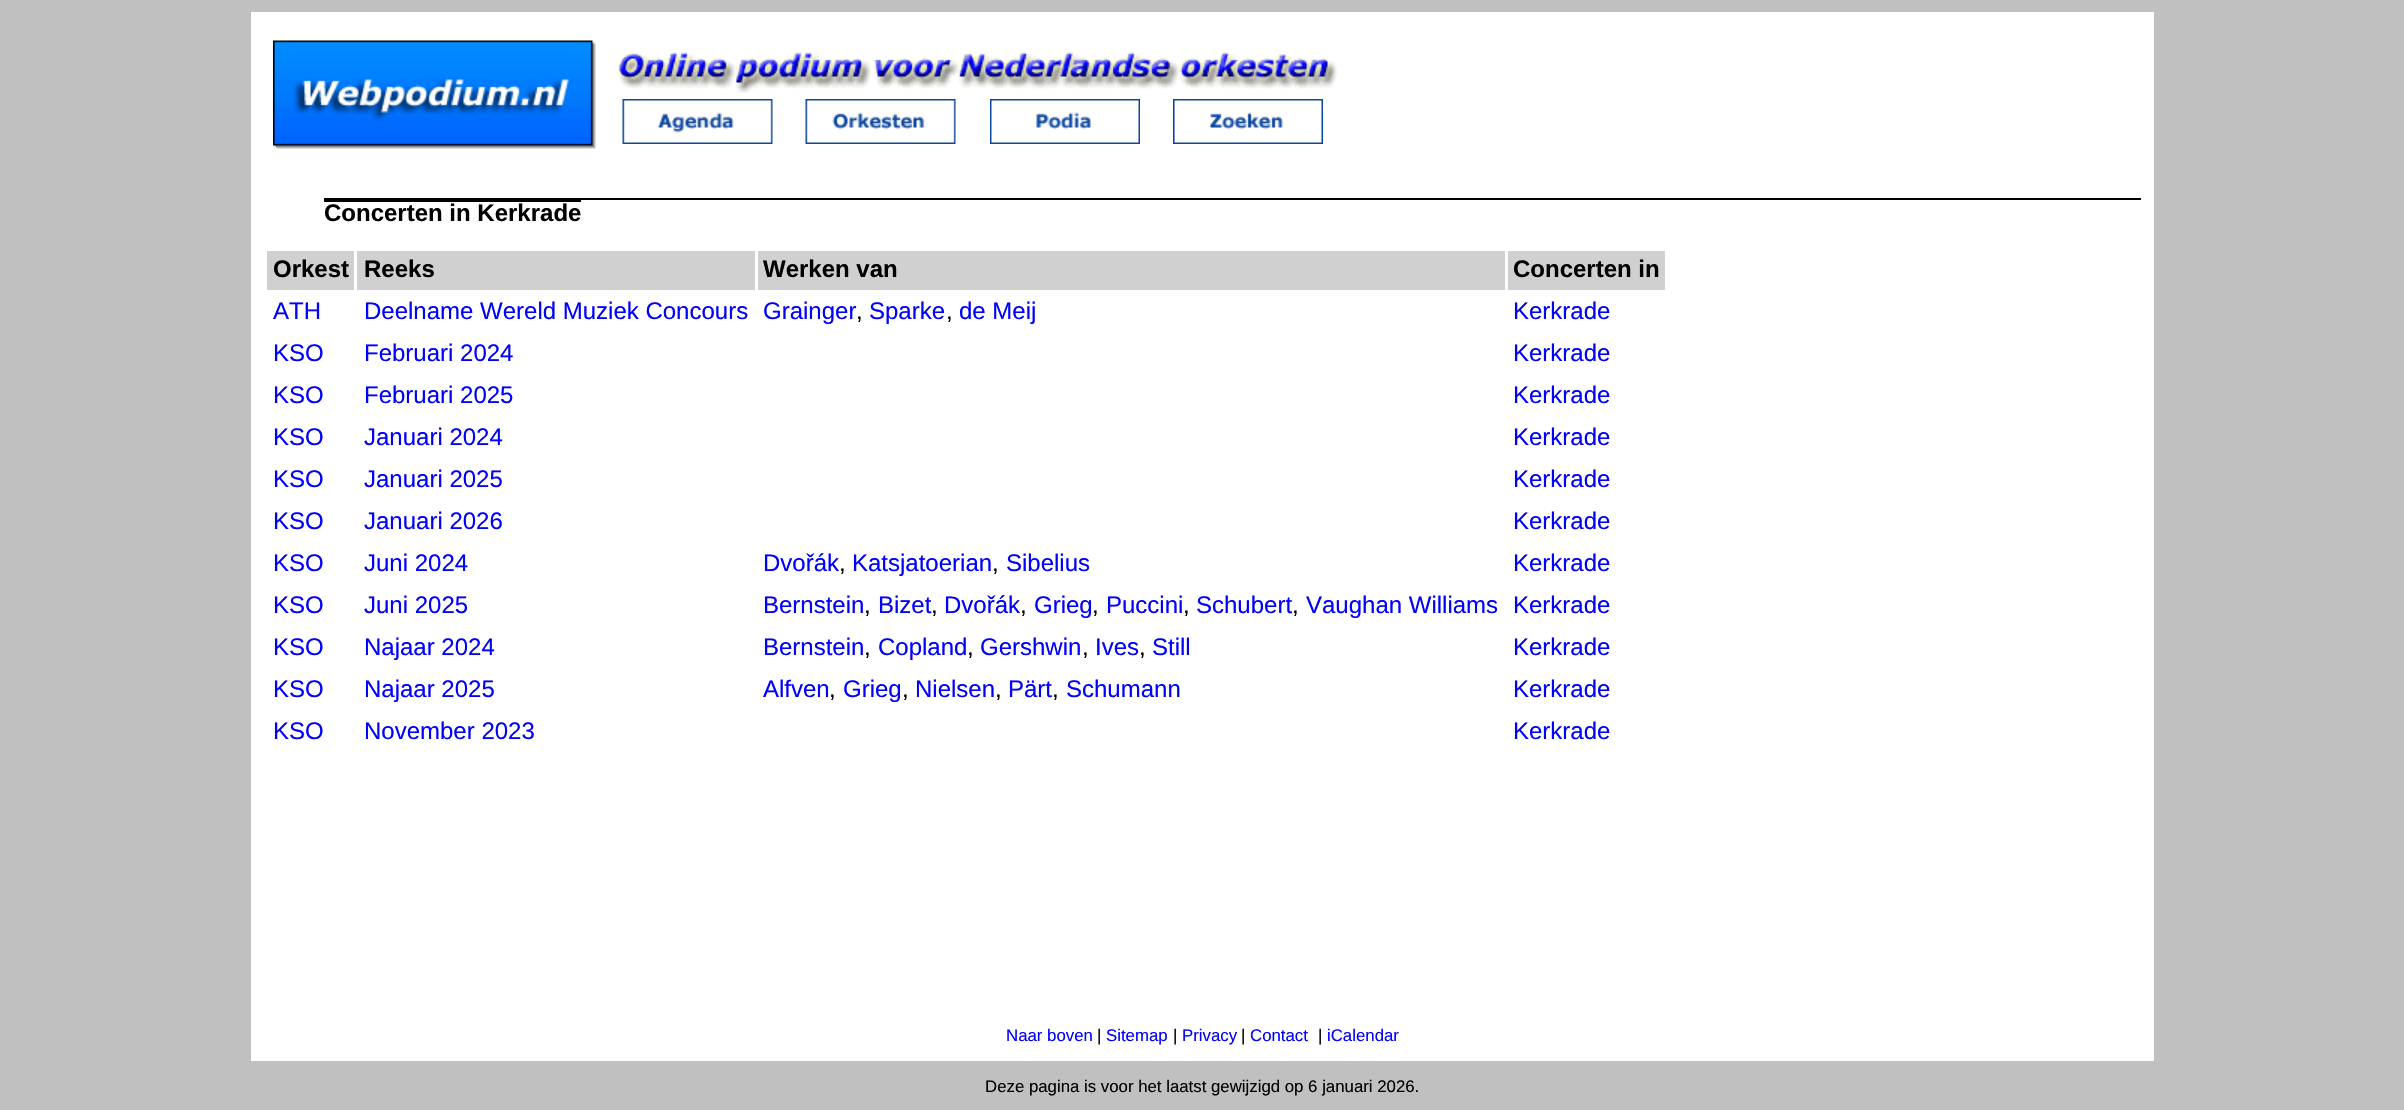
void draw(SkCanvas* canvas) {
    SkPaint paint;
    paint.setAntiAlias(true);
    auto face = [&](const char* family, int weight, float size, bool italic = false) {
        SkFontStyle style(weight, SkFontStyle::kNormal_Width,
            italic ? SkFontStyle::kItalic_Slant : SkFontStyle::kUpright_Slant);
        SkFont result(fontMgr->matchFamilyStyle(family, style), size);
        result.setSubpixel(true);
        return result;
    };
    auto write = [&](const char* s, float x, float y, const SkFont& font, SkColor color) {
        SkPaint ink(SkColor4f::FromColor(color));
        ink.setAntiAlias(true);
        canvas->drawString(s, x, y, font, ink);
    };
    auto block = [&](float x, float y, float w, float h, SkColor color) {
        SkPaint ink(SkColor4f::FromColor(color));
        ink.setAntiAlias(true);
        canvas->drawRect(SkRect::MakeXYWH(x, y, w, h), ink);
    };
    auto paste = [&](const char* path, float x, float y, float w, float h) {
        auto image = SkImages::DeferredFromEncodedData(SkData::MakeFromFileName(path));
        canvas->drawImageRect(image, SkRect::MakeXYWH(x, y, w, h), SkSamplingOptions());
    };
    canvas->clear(SkColorSetRGB(192, 192, 192));
    block(251, 12, 1903, 1049, SK_ColorWHITE);
    paste("pic1.png", 273, 40, 323, 109);
    paste("pic2.png", 618, 52, 720, 41);
    paste("pic3.png", 622, 99, 151, 45);
    paste("pic4.png", 805, 99, 151, 45);
    paste("pic5.png", 990, 99, 150, 45);
    paste("pic6.png", 1173, 99, 150, 45);
    block(324, 198, 1817, 2, SK_ColorBLACK);
    auto kFont1 = face("Liberation Sans", 700, 24);
    write("Concerten in Kerkrade", 324, 221, kFont1, SK_ColorBLACK);
    block(324, 200, 257, 2, SK_ColorBLACK);
    block(267, 251, 87, 39, SkColorSetRGB(208, 208, 208));
    write("Orkest", 273, 277, kFont1, SK_ColorBLACK);
    block(357, 251, 398, 39, SkColorSetRGB(208, 208, 208));
    write("Reeks", 364, 277, kFont1, SK_ColorBLACK);
    block(758, 251, 747, 39, SkColorSetRGB(208, 208, 208));
    write("Werken van", 763, 277, kFont1, SK_ColorBLACK);
    block(1508, 251, 157, 39, SkColorSetRGB(208, 208, 208));
    write("Concerten in", 1513, 277, kFont1, SK_ColorBLACK);
    auto kFont2 = face("Liberation Sans", 400, 24);
    write("ATH", 273, 319, kFont2, SkColorSetRGB(0, 0, 255));
    write("Deelname Wereld Muziek Concours", 364, 319, kFont2, SkColorSetRGB(0, 0, 255));
    write("Grainger", 763, 319, kFont2, SkColorSetRGB(0, 0, 255));
    write(",", 856, 319, kFont2, SK_ColorBLACK);
    write("Sparke", 869, 319, kFont2, SkColorSetRGB(0, 0, 255));
    write(",", 946, 319, kFont2, SK_ColorBLACK);
    write("de Meij", 959, 319, kFont2, SkColorSetRGB(0, 0, 255));
    write("Kerkrade", 1513, 319, kFont2, SkColorSetRGB(0, 0, 255));
    write("KSO", 273, 361, kFont2, SkColorSetRGB(0, 0, 255));
    write("Februari 2024", 364, 361, kFont2, SkColorSetRGB(0, 0, 255));
    write("Kerkrade", 1513, 361, kFont2, SkColorSetRGB(0, 0, 255));
    write("KSO", 273, 403, kFont2, SkColorSetRGB(0, 0, 255));
    write("Februari 2025", 364, 403, kFont2, SkColorSetRGB(0, 0, 255));
    write("Kerkrade", 1513, 403, kFont2, SkColorSetRGB(0, 0, 255));
    write("KSO", 273, 445, kFont2, SkColorSetRGB(0, 0, 255));
    write("Januari 2024", 364, 445, kFont2, SkColorSetRGB(0, 0, 255));
    write("Kerkrade", 1513, 445, kFont2, SkColorSetRGB(0, 0, 255));
    write("KSO", 273, 487, kFont2, SkColorSetRGB(0, 0, 255));
    write("Januari 2025", 364, 487, kFont2, SkColorSetRGB(0, 0, 255));
    write("Kerkrade", 1513, 487, kFont2, SkColorSetRGB(0, 0, 255));
    write("KSO", 273, 529, kFont2, SkColorSetRGB(0, 0, 255));
    write("Januari 2026", 364, 529, kFont2, SkColorSetRGB(0, 0, 255));
    write("Kerkrade", 1513, 529, kFont2, SkColorSetRGB(0, 0, 255));
    write("KSO", 273, 571, kFont2, SkColorSetRGB(0, 0, 255));
    write("Juni 2024", 364, 571, kFont2, SkColorSetRGB(0, 0, 255));
    write("Dvořák", 763, 571, kFont2, SkColorSetRGB(0, 0, 255));
    write(",", 839, 571, kFont2, SK_ColorBLACK);
    write("Katsjatoerian", 852, 571, kFont2, SkColorSetRGB(0, 0, 255));
    write(",", 992, 571, kFont2, SK_ColorBLACK);
    write("Sibelius", 1006, 571, kFont2, SkColorSetRGB(0, 0, 255));
    write("Kerkrade", 1513, 571, kFont2, SkColorSetRGB(0, 0, 255));
    write("KSO", 273, 613, kFont2, SkColorSetRGB(0, 0, 255));
    write("Juni 2025", 364, 613, kFont2, SkColorSetRGB(0, 0, 255));
    write("Bernstein", 763, 613, kFont2, SkColorSetRGB(0, 0, 255));
    write(",", 864, 613, kFont2, SK_ColorBLACK);
    write("Bizet", 878, 613, kFont2, SkColorSetRGB(0, 0, 255));
    write(",", 931, 613, kFont2, SK_ColorBLACK);
    write("Dvořák", 944, 613, kFont2, SkColorSetRGB(0, 0, 255));
    write(",", 1020, 613, kFont2, SK_ColorBLACK);
    write("Grieg", 1034, 613, kFont2, SkColorSetRGB(0, 0, 255));
    write(",", 1092, 613, kFont2, SK_ColorBLACK);
    write("Puccini", 1106, 613, kFont2, SkColorSetRGB(0, 0, 255));
    write(",", 1183, 613, kFont2, SK_ColorBLACK);
    write("Schubert", 1196, 613, kFont2, SkColorSetRGB(0, 0, 255));
    write(",", 1292, 613, kFont2, SK_ColorBLACK);
    write("Vaughan Williams", 1306, 613, kFont2, SkColorSetRGB(0, 0, 255));
    write("Kerkrade", 1513, 613, kFont2, SkColorSetRGB(0, 0, 255));
    write("KSO", 273, 655, kFont2, SkColorSetRGB(0, 0, 255));
    write("Najaar 2024", 364, 655, kFont2, SkColorSetRGB(0, 0, 255));
    write("Bernstein", 763, 655, kFont2, SkColorSetRGB(0, 0, 255));
    write(",", 864, 655, kFont2, SK_ColorBLACK);
    write("Copland", 878, 655, kFont2, SkColorSetRGB(0, 0, 255));
    write(",", 967, 655, kFont2, SK_ColorBLACK);
    write("Gershwin", 980, 655, kFont2, SkColorSetRGB(0, 0, 255));
    write(",", 1082, 655, kFont2, SK_ColorBLACK);
    write("Ives", 1095, 655, kFont2, SkColorSetRGB(0, 0, 255));
    write(",", 1139, 655, kFont2, SK_ColorBLACK);
    write("Still", 1152, 655, kFont2, SkColorSetRGB(0, 0, 255));
    write("Kerkrade", 1513, 655, kFont2, SkColorSetRGB(0, 0, 255));
    write("KSO", 273, 697, kFont2, SkColorSetRGB(0, 0, 255));
    write("Najaar 2025", 364, 697, kFont2, SkColorSetRGB(0, 0, 255));
    write("Alfven", 763, 697, kFont2, SkColorSetRGB(0, 0, 255));
    write(",", 829, 697, kFont2, SK_ColorBLACK);
    write("Grieg", 843, 697, kFont2, SkColorSetRGB(0, 0, 255));
    write(",", 902, 697, kFont2, SK_ColorBLACK);
    write("Nielsen", 915, 697, kFont2, SkColorSetRGB(0, 0, 255));
    write(",", 995, 697, kFont2, SK_ColorBLACK);
    write("Pärt", 1008, 697, kFont2, SkColorSetRGB(0, 0, 255));
    write(",", 1052, 697, kFont2, SK_ColorBLACK);
    write("Schumann", 1066, 697, kFont2, SkColorSetRGB(0, 0, 255));
    write("Kerkrade", 1513, 697, kFont2, SkColorSetRGB(0, 0, 255));
    write("KSO", 273, 739, kFont2, SkColorSetRGB(0, 0, 255));
    write("November 2023", 364, 739, kFont2, SkColorSetRGB(0, 0, 255));
    write("Kerkrade", 1513, 739, kFont2, SkColorSetRGB(0, 0, 255));
    auto kFont3 = face("Liberation Sans", 400, 16.8f);
    write("Naar boven", 1006, 1041, kFont3, SkColorSetRGB(0, 0, 255));
    write("|", 1097, 1041, kFont3, SK_ColorBLACK);
    write("Sitemap", 1106, 1041, kFont3, SkColorSetRGB(0, 0, 255));
    write("|", 1173, 1041, kFont3, SK_ColorBLACK);
    write("Privacy", 1182, 1041, kFont3, SkColorSetRGB(0, 0, 255));
    write("|", 1241, 1041, kFont3, SK_ColorBLACK);
    write("Contact", 1250, 1041, kFont3, SkColorSetRGB(0, 0, 255));
    write("|", 1318, 1041, kFont3, SK_ColorBLACK);
    write("iCalendar", 1327, 1041, kFont3, SkColorSetRGB(0, 0, 255));
    write("Deze pagina is voor het laatst gewijzigd op 6 januari 2026.", 985, 1092, kFont3, SK_ColorBLACK);
}
